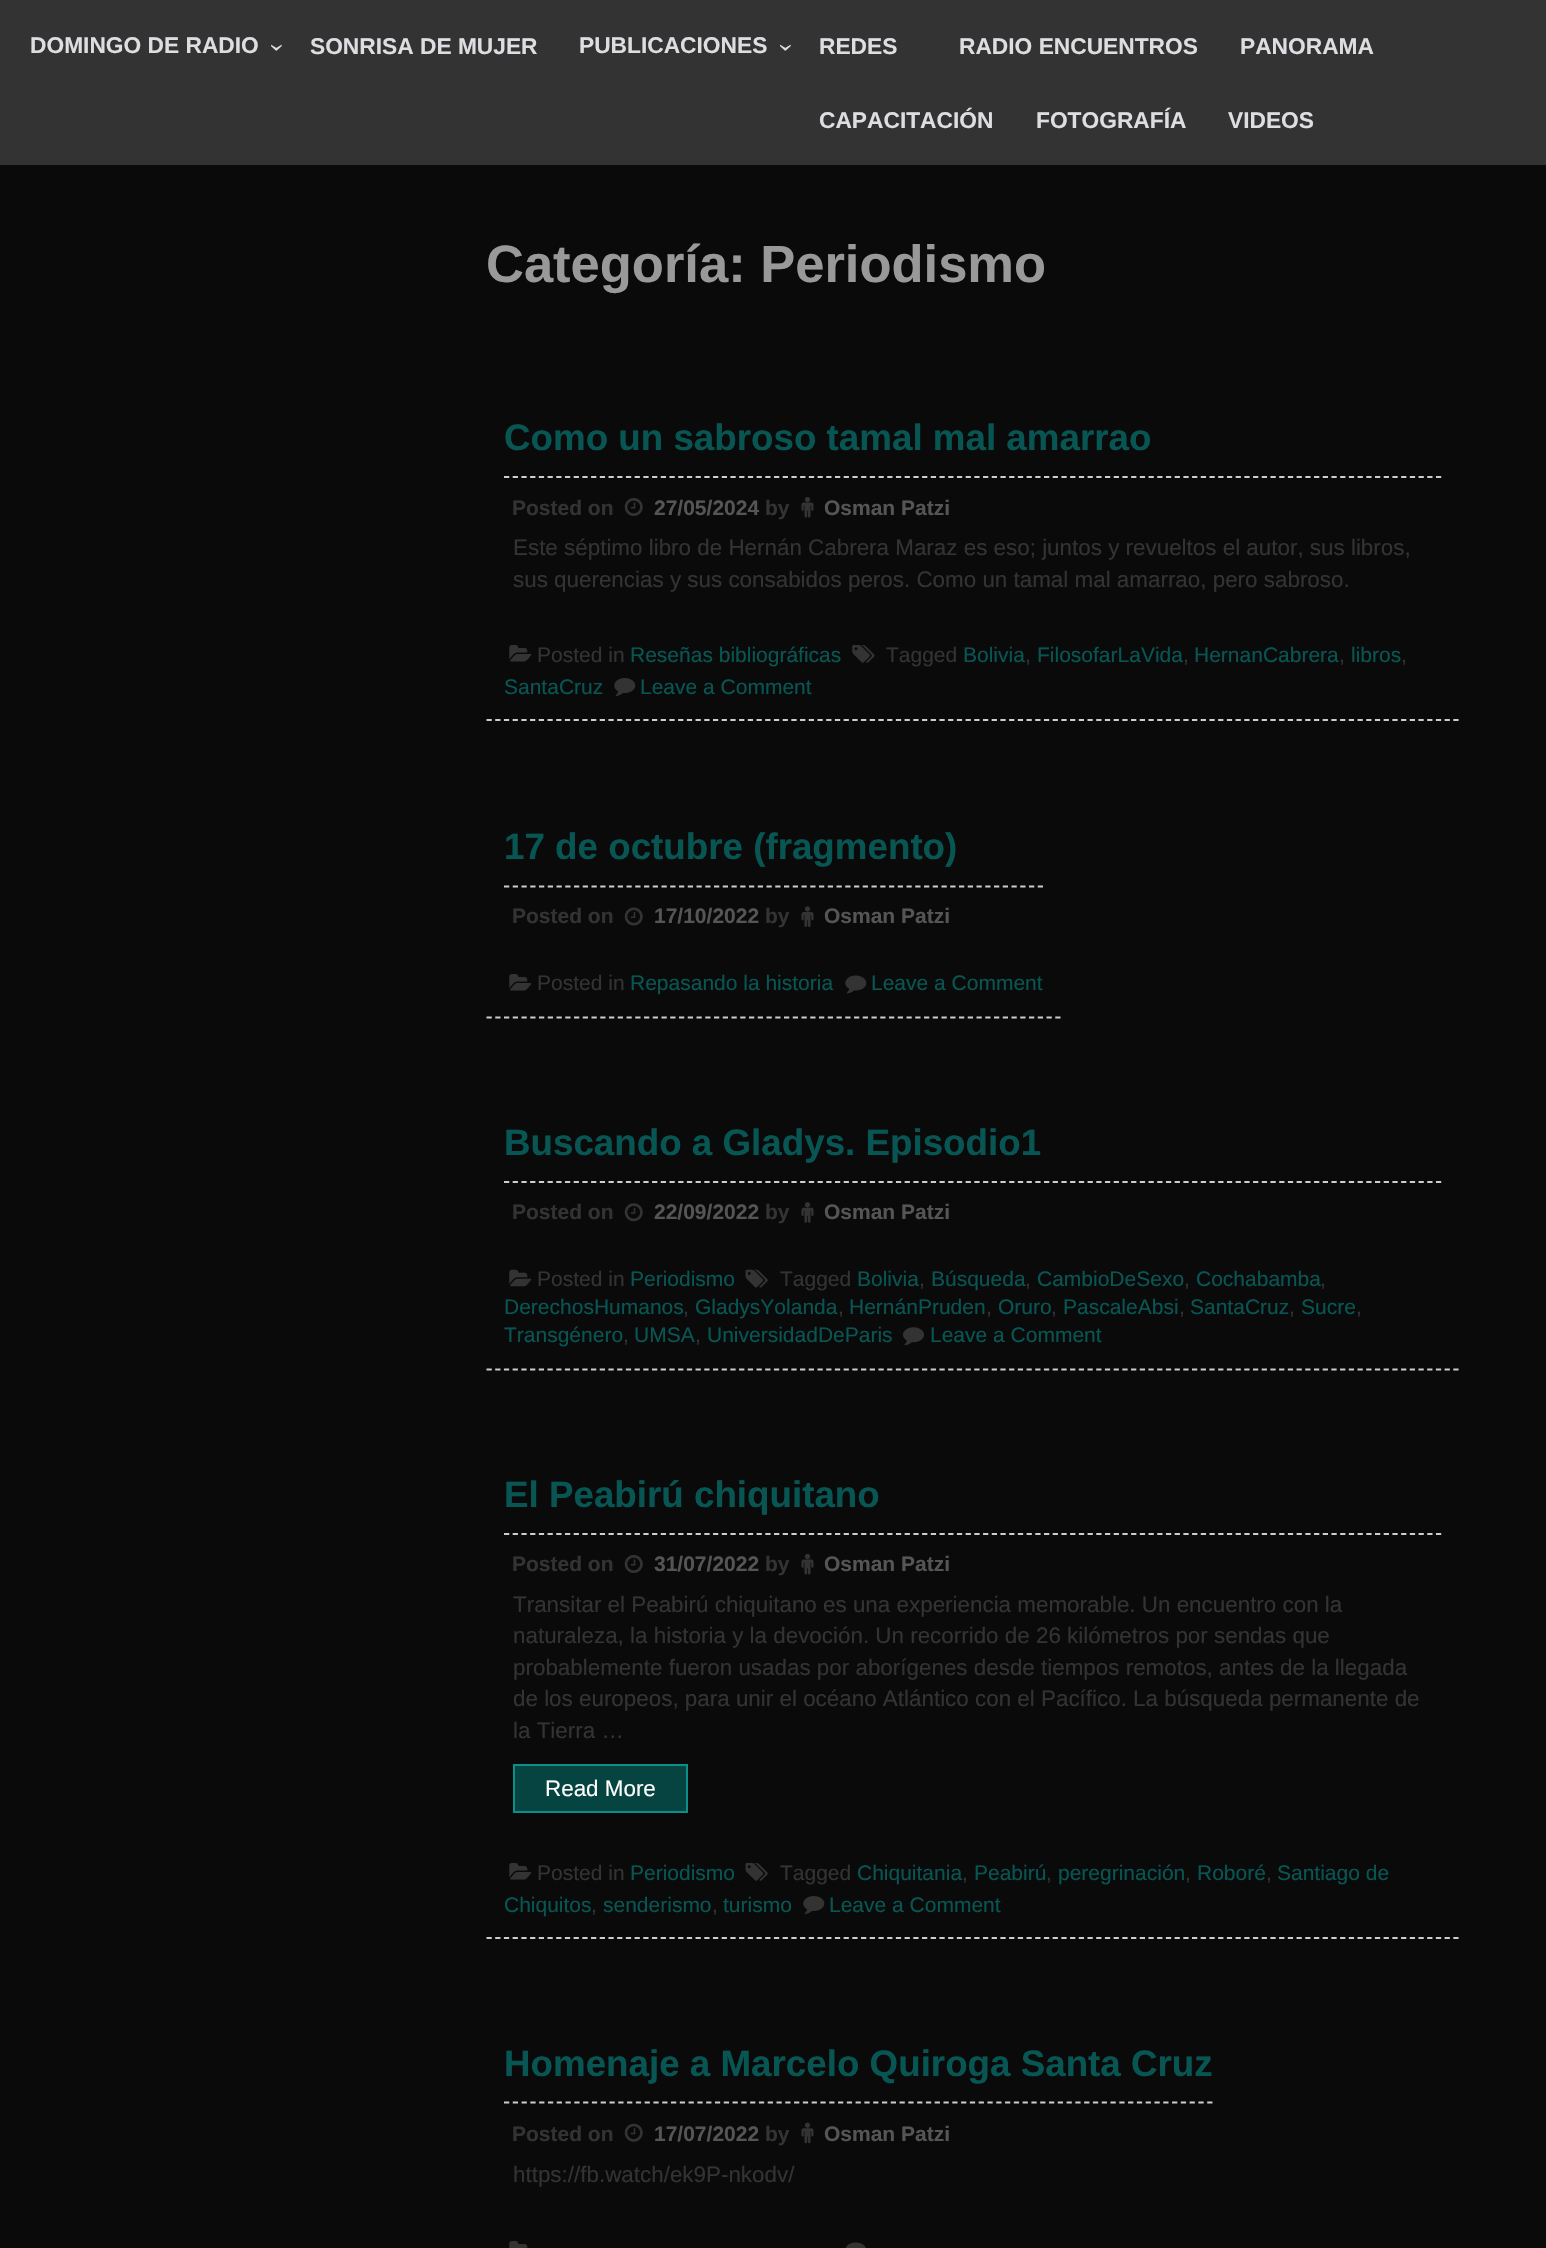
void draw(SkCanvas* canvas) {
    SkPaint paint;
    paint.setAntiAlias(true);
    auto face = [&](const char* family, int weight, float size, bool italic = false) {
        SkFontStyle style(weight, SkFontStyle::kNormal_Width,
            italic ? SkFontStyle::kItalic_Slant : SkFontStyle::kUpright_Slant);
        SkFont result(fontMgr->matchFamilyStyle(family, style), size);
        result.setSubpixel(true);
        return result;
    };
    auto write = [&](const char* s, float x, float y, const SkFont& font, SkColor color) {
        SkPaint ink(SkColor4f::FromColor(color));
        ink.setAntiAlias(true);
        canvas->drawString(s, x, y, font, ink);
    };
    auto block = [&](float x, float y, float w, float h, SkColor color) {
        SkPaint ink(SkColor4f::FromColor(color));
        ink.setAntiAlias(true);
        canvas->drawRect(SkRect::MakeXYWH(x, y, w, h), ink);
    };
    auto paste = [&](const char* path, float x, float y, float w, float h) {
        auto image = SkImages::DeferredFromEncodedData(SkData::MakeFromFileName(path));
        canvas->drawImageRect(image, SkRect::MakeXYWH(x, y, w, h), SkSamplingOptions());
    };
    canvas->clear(SkColorSetRGB(10, 10, 10));
    block(0, 0, 1546, 165, SkColorSetRGB(51, 51, 51));
    auto kFont1 = face("Liberation Sans", 700, 22.75f);
    write("DOMINGO DE RADIO", 30, 53, kFont1, SkColorSetRGB(222, 222, 226));
    auto kFont2 = face("Liberation Serif", 400, 28);
    canvas->save();
    canvas->rotate(90, 270, 43);
    write("›", 270, 43, kFont2, SkColorSetRGB(222, 222, 226));
    canvas->restore();
    write("SONRISA DE MUJER", 310, 54, kFont1, SkColorSetRGB(222, 222, 226));
    write("PUBLICACIONES", 579, 53, kFont1, SkColorSetRGB(222, 222, 226));
    canvas->save();
    canvas->rotate(90, 779, 43);
    write("›", 779, 43, kFont2, SkColorSetRGB(222, 222, 226));
    canvas->restore();
    write("REDES", 819, 54, kFont1, SkColorSetRGB(222, 222, 226));
    write("RADIO ENCUENTROS", 959, 54, kFont1, SkColorSetRGB(222, 222, 226));
    write("PANORAMA", 1240, 54, kFont1, SkColorSetRGB(222, 222, 226));
    write("CAPACITACIÓN", 819, 128, kFont1, SkColorSetRGB(222, 222, 226));
    write("FOTOGRAFÍA", 1036, 128, kFont1, SkColorSetRGB(222, 222, 226));
    write("VIDEOS", 1228, 128, kFont1, SkColorSetRGB(222, 222, 226));
    auto kFont3 = face("Liberation Sans", 700, 52.5f);
    write("Categoría: Periodismo", 486, 282, kFont3, SkColorSetRGB(153, 153, 153));
    paint.setStyle(SkPaint::kStroke_Style);
    paint.setStrokeWidth(1.8f);
    paint.setColor(SkColorSetRGB(206, 206, 206));
    paint.setPathEffect(SkDashPathEffect::Make({{5.25f, 3.46f}}, 0));
    canvas->drawPath(SkPathBuilder().moveTo(486.5f, 720).lineTo(1459.5f, 720).detach(), paint);
    paint.setPathEffect(nullptr);
    paint.setPathEffect(SkDashPathEffect::Make({{5.25f, 3.46f}}, 0));
    canvas->drawPath(SkPathBuilder().moveTo(504, 477).lineTo(1442, 477).detach(), paint);
    paint.setPathEffect(nullptr);
    auto kFont4 = face("Liberation Sans", 700, 36.75f);
    write("Como un sabroso tamal mal amarrao", 504, 450, kFont4, SkColorSetRGB(7, 86, 84));
    auto kFont5 = face("Liberation Sans", 700, 21);
    write("Posted on", 512, 515, kFont5, SkColorSetRGB(51, 51, 51));
    paste("pic1.png", 624, 498, 19, 18);
    write("27/05/2024", 654, 515, kFont5, SkColorSetRGB(85, 85, 85));
    write("by", 765, 515, kFont5, SkColorSetRGB(51, 51, 51));
    paste("pic2.png", 801, 497, 13, 21);
    write("Osman Patzi", 824, 515, kFont5, SkColorSetRGB(85, 85, 85));
    auto kFont6 = face("Liberation Sans", 400, 22.4f);
    write("Este séptimo libro de Hernán Cabrera Maraz es eso; juntos y revueltos el autor, sus libros,", 513, 555, kFont6, SkColorSetRGB(51, 51, 51));
    write("sus querencias y sus consabidos peros. Como un tamal mal amarrao, pero sabroso.", 513, 587, kFont6, SkColorSetRGB(51, 51, 51));
    paste("pic3.png", 509, 645, 23, 17);
    auto kFont7 = face("Liberation Sans", 400, 21);
    write("Posted in", 537, 662, kFont7, SkColorSetRGB(51, 51, 51));
    write("Reseñas bibliográficas", 630, 662, kFont7, SkColorSetRGB(7, 86, 84));
    paste("pic4.png", 852, 645, 23, 18);
    write("Tagged", 886, 662, kFont7, SkColorSetRGB(51, 51, 51));
    write("Bolivia", 963, 662, kFont7, SkColorSetRGB(7, 86, 84));
    write(",", 1025, 662, kFont7, SkColorSetRGB(51, 51, 51));
    write("FilosofarLaVida", 1037, 662, kFont7, SkColorSetRGB(7, 86, 84));
    write(",", 1183, 662, kFont7, SkColorSetRGB(51, 51, 51));
    write("HernanCabrera", 1194, 662, kFont7, SkColorSetRGB(7, 86, 84));
    write(",", 1339, 662, kFont7, SkColorSetRGB(51, 51, 51));
    write("libros", 1351, 662, kFont7, SkColorSetRGB(7, 86, 84));
    write(",", 1401, 662, kFont7, SkColorSetRGB(51, 51, 51));
    write("SantaCruz", 504, 694, kFont7, SkColorSetRGB(7, 86, 84));
    paste("pic5.png", 614, 678, 22, 18);
    write("Leave a Comment", 640, 694, kFont7, SkColorSetRGB(7, 86, 84));
    paint.setPathEffect(SkDashPathEffect::Make({{5.25f, 3.5f}}, 0));
    canvas->drawPath(SkPathBuilder().moveTo(486.5f, 1017.5f).lineTo(1060.5f, 1017.5f).detach(), paint);
    paint.setPathEffect(nullptr);
    paint.setPathEffect(SkDashPathEffect::Make({{5.25f, 3.5f}}, 0));
    canvas->drawPath(SkPathBuilder().moveTo(504, 886.5f).lineTo(1043, 886.5f).detach(), paint);
    paint.setPathEffect(nullptr);
    write("17 de octubre (fragmento)", 504, 859, kFont4, SkColorSetRGB(7, 86, 84));
    write("Posted on", 512, 923, kFont5, SkColorSetRGB(51, 51, 51));
    paste("pic6.png", 624, 907, 19, 19);
    write("17/10/2022", 654, 923, kFont5, SkColorSetRGB(85, 85, 85));
    write("by", 765, 923, kFont5, SkColorSetRGB(51, 51, 51));
    paste("pic7.png", 801, 906, 13, 21);
    write("Osman Patzi", 824, 923, kFont5, SkColorSetRGB(85, 85, 85));
    paste("pic3.png", 509, 974, 23, 17);
    write("Posted in", 537, 990, kFont7, SkColorSetRGB(51, 51, 51));
    write("Repasando la historia", 630, 990, kFont7, SkColorSetRGB(7, 86, 84));
    paste("pic8.png", 845, 975, 22, 19);
    write("Leave a Comment", 871, 990, kFont7, SkColorSetRGB(7, 86, 84));
    paint.setPathEffect(SkDashPathEffect::Make({{5.25f, 3.46f}}, 0));
    canvas->drawPath(SkPathBuilder().moveTo(486.5f, 1369.5f).lineTo(1459.5f, 1369.5f).detach(), paint);
    paint.setPathEffect(nullptr);
    paint.setPathEffect(SkDashPathEffect::Make({{5.25f, 3.46f}}, 0));
    canvas->drawPath(SkPathBuilder().moveTo(504, 1182).lineTo(1442, 1182).detach(), paint);
    paint.setPathEffect(nullptr);
    write("Buscando a Gladys. Episodio1", 504, 1155, kFont4, SkColorSetRGB(7, 86, 84));
    write("Posted on", 512, 1219, kFont5, SkColorSetRGB(51, 51, 51));
    paste("pic9.png", 624, 1203, 19, 19);
    write("22/09/2022", 654, 1219, kFont5, SkColorSetRGB(85, 85, 85));
    write("by", 765, 1219, kFont5, SkColorSetRGB(51, 51, 51));
    paste("pic10.png", 801, 1202, 13, 21);
    write("Osman Patzi", 824, 1219, kFont5, SkColorSetRGB(85, 85, 85));
    paste("pic11.png", 509, 1269, 23, 18);
    write("Posted in", 537, 1286, kFont7, SkColorSetRGB(51, 51, 51));
    write("Periodismo", 630, 1286, kFont7, SkColorSetRGB(7, 86, 84));
    paste("pic12.png", 745, 1269, 23, 19);
    write("Tagged", 780, 1286, kFont7, SkColorSetRGB(51, 51, 51));
    write("Bolivia", 857, 1286, kFont7, SkColorSetRGB(7, 86, 84));
    write(",", 919, 1286, kFont7, SkColorSetRGB(51, 51, 51));
    write("Búsqueda", 931, 1286, kFont7, SkColorSetRGB(7, 86, 84));
    write(",", 1025, 1286, kFont7, SkColorSetRGB(51, 51, 51));
    write("CambioDeSexo", 1037, 1286, kFont7, SkColorSetRGB(7, 86, 84));
    write(",", 1184, 1286, kFont7, SkColorSetRGB(51, 51, 51));
    write("Cochabamba", 1196, 1286, kFont7, SkColorSetRGB(7, 86, 84));
    write(",", 1320, 1286, kFont7, SkColorSetRGB(51, 51, 51));
    write("DerechosHumanos", 504, 1314, kFont7, SkColorSetRGB(7, 86, 84));
    write(",", 683, 1314, kFont7, SkColorSetRGB(51, 51, 51));
    write("GladysYolanda", 695, 1314, kFont7, SkColorSetRGB(7, 86, 84));
    write(",", 838, 1314, kFont7, SkColorSetRGB(51, 51, 51));
    write("HernánPruden", 849, 1314, kFont7, SkColorSetRGB(7, 86, 84));
    write(",", 986, 1314, kFont7, SkColorSetRGB(51, 51, 51));
    write("Oruro", 998, 1314, kFont7, SkColorSetRGB(7, 86, 84));
    write(",", 1051, 1314, kFont7, SkColorSetRGB(51, 51, 51));
    write("PascaleAbsi", 1063, 1314, kFont7, SkColorSetRGB(7, 86, 84));
    write(",", 1179, 1314, kFont7, SkColorSetRGB(51, 51, 51));
    write("SantaCruz", 1190, 1314, kFont7, SkColorSetRGB(7, 86, 84));
    write(",", 1289, 1314, kFont7, SkColorSetRGB(51, 51, 51));
    write("Sucre", 1301, 1314, kFont7, SkColorSetRGB(7, 86, 84));
    write(",", 1356, 1314, kFont7, SkColorSetRGB(51, 51, 51));
    write("Transgénero", 504, 1342, kFont7, SkColorSetRGB(7, 86, 84));
    write(",", 623, 1342, kFont7, SkColorSetRGB(51, 51, 51));
    write("UMSA", 634, 1342, kFont7, SkColorSetRGB(7, 86, 84));
    write(",", 695, 1342, kFont7, SkColorSetRGB(51, 51, 51));
    write("UniversidadDeParis", 707, 1342, kFont7, SkColorSetRGB(7, 86, 84));
    paste("pic13.png", 903, 1327, 21, 19);
    write("Leave a Comment", 930, 1342, kFont7, SkColorSetRGB(7, 86, 84));
    paint.setPathEffect(SkDashPathEffect::Make({{5.25f, 3.46f}}, 0));
    canvas->drawPath(SkPathBuilder().moveTo(486.5f, 1938).lineTo(1459.5f, 1938).detach(), paint);
    paint.setPathEffect(nullptr);
    paint.setPathEffect(SkDashPathEffect::Make({{5.25f, 3.46f}}, 0));
    canvas->drawPath(SkPathBuilder().moveTo(504, 1534).lineTo(1442, 1534).detach(), paint);
    paint.setPathEffect(nullptr);
    write("El Peabirú chiquitano", 504, 1507, kFont4, SkColorSetRGB(7, 86, 84));
    write("Posted on", 512, 1571, kFont5, SkColorSetRGB(51, 51, 51));
    paste("pic1.png", 624, 1555, 19, 18);
    write("31/07/2022", 654, 1571, kFont5, SkColorSetRGB(85, 85, 85));
    write("by", 765, 1571, kFont5, SkColorSetRGB(51, 51, 51));
    paste("pic14.png", 801, 1554, 13, 21);
    write("Osman Patzi", 824, 1571, kFont5, SkColorSetRGB(85, 85, 85));
    write("Transitar el Peabirú chiquitano es una experiencia memorable. Un encuentro con la", 513, 1612, kFont6, SkColorSetRGB(51, 51, 51));
    write("naturaleza, la historia y la devoción. Un recorrido de 26 kilómetros por sendas que", 513, 1643, kFont6, SkColorSetRGB(51, 51, 51));
    write("probablemente fueron usadas por aborígenes desde tiempos remotos, antes de la llegada", 513, 1675, kFont6, SkColorSetRGB(51, 51, 51));
    write("de los europeos, para unir el océano Atlántico con el Pacífico. La búsqueda permanente de", 513, 1706, kFont6, SkColorSetRGB(51, 51, 51));
    write("la Tierra …", 513, 1738, kFont6, SkColorSetRGB(51, 51, 51));
    paint.setStyle(SkPaint::kFill_Style);
    paint.setColor(SkColorSetRGB(6, 68, 65));
    canvas->drawRect(SkRect::MakeXYWH(514, 1765, 173, 47), paint);
    paint.setStyle(SkPaint::kStroke_Style);
    paint.setStrokeWidth(2);
    paint.setColor(SkColorSetRGB(12, 142, 138));
    canvas->drawRect(SkRect::MakeXYWH(514, 1765, 173, 47), paint);
    write("Read More", 545, 1796, kFont6, SK_ColorWHITE);
    paste("pic3.png", 509, 1863, 23, 17);
    write("Posted in", 537, 1880, kFont7, SkColorSetRGB(51, 51, 51));
    write("Periodismo", 630, 1880, kFont7, SkColorSetRGB(7, 86, 84));
    paste("pic15.png", 745, 1863, 23, 18);
    write("Tagged", 780, 1880, kFont7, SkColorSetRGB(51, 51, 51));
    write("Chiquitania", 857, 1880, kFont7, SkColorSetRGB(7, 86, 84));
    write(",", 962, 1880, kFont7, SkColorSetRGB(51, 51, 51));
    write("Peabirú", 974, 1880, kFont7, SkColorSetRGB(7, 86, 84));
    write(",", 1046, 1880, kFont7, SkColorSetRGB(51, 51, 51));
    write("peregrinación", 1058, 1880, kFont7, SkColorSetRGB(7, 86, 84));
    write(",", 1185, 1880, kFont7, SkColorSetRGB(51, 51, 51));
    write("Roboré", 1197, 1880, kFont7, SkColorSetRGB(7, 86, 84));
    write(",", 1266, 1880, kFont7, SkColorSetRGB(51, 51, 51));
    write("Santiago de", 1277, 1880, kFont7, SkColorSetRGB(7, 86, 84));
    write("Chiquitos", 504, 1912, kFont7, SkColorSetRGB(7, 86, 84));
    write(",", 591, 1912, kFont7, SkColorSetRGB(51, 51, 51));
    write("senderismo", 603, 1912, kFont7, SkColorSetRGB(7, 86, 84));
    write(",", 712, 1912, kFont7, SkColorSetRGB(51, 51, 51));
    write("turismo", 723, 1912, kFont7, SkColorSetRGB(7, 86, 84));
    paste("pic16.png", 803, 1896, 22, 18);
    write("Leave a Comment", 829, 1912, kFont7, SkColorSetRGB(7, 86, 84));
    paint.setStrokeWidth(1.8f);
    paint.setColor(SkColorSetRGB(206, 206, 206));
    paint.setPathEffect(SkDashPathEffect::Make({{5.25f, 3.54f}}, 0));
    canvas->drawPath(SkPathBuilder().moveTo(504, 2102.5f).lineTo(1213, 2102.5f).detach(), paint);
    paint.setPathEffect(nullptr);
    write("Homenaje a Marcelo Quiroga Santa Cruz", 504, 2076, kFont4, SkColorSetRGB(7, 86, 84));
    write("Posted on", 512, 2141, kFont5, SkColorSetRGB(51, 51, 51));
    paste("pic17.png", 624, 2123, 19, 19);
    write("17/07/2022", 654, 2141, kFont5, SkColorSetRGB(85, 85, 85));
    write("by", 765, 2141, kFont5, SkColorSetRGB(51, 51, 51));
    paste("pic18.png", 801, 2122, 13, 22);
    write("Osman Patzi", 824, 2141, kFont5, SkColorSetRGB(85, 85, 85));
    write("https://fb.watch/ek9P-nkodv/", 513, 2182, kFont6, SkColorSetRGB(51, 51, 51));
    paste("pic19.png", 509, 2241, 19, 7);
    paste("pic20.png", 845, 2242, 21, 6);
}
